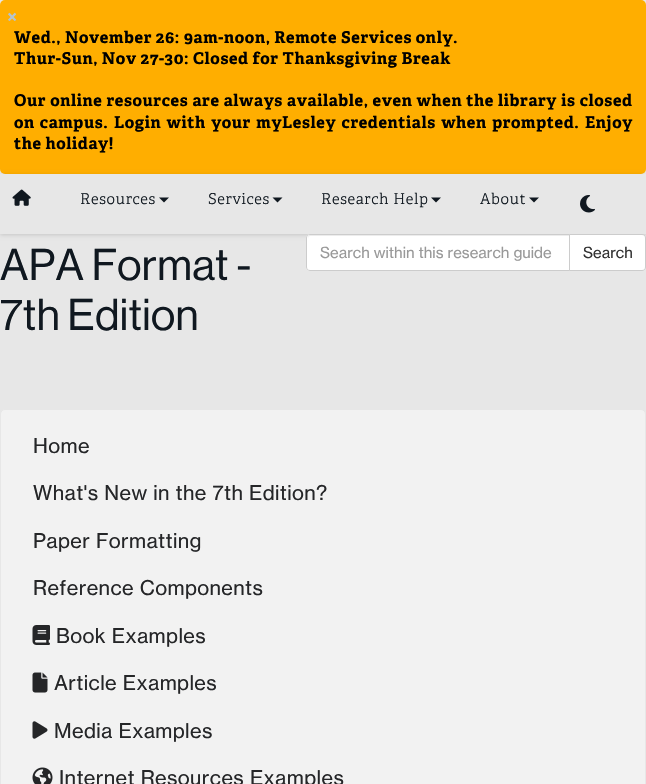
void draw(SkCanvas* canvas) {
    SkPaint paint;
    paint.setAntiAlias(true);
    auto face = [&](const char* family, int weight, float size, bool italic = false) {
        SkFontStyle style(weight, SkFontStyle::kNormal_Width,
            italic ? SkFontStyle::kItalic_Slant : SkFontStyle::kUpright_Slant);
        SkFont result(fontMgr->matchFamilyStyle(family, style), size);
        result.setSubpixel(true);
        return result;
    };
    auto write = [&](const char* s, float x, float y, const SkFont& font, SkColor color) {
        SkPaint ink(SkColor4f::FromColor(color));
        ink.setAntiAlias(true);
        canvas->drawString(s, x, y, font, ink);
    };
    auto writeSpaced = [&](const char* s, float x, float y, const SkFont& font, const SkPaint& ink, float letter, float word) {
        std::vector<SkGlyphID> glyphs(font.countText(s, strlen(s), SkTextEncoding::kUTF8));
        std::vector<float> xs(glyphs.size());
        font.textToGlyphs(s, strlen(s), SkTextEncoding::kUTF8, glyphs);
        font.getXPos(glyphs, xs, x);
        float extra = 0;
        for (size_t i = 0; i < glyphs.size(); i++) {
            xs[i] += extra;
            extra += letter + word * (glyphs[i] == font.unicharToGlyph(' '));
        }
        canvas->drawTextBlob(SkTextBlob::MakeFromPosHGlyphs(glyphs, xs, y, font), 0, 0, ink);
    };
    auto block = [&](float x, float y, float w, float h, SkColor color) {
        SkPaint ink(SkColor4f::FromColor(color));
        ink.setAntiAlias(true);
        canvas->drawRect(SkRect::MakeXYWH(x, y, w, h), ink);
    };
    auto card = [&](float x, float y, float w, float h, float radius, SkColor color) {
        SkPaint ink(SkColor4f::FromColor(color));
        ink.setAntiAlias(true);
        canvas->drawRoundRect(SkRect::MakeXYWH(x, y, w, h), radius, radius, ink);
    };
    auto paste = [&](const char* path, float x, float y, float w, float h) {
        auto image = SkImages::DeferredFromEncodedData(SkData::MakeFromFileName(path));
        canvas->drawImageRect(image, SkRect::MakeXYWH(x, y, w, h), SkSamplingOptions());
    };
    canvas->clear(SkColorSetRGB(231, 231, 231));
    card(0, 0, 646, 174, 5, SkColorSetRGB(255, 174, 0));
    auto kFont1 = face("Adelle", 400, 25);
    paint.setColor(SkColorSetRGB(180, 196, 210));
    writeSpaced("×", 5, 25, kFont1, paint, 0.62f, 0);
    auto kFont2 = face("Adelle", 700, 16.25f);
    paint.setColor(SK_ColorBLACK);
    writeSpaced("Wed., November 26: 9am-noon, Remote Services only.", 14, 43, kFont2, paint, 0.62f, 0);
    writeSpaced("Thur-Sun, Nov 27-30: Closed for Thanksgiving Break", 14, 64, kFont2, paint, 0.62f, 0);
    writeSpaced("Our online resources are always available, even when the library is closed", 14, 106, kFont2, paint, 0.62f, 0.25f);
    writeSpaced("on campus.", 14, 128, kFont2, paint, 0.62f, 1);
    writeSpaced("Login with your myLesley credentials when prompted.", 114, 128, kFont2, paint, 0.62f, 1.5f);
    writeSpaced("Enjoy", 585, 128, kFont2, paint, 0.62f, 0);
    writeSpaced("the holiday!", 14, 149, kFont2, paint, 0.62f, 0);
    paint.setColor(SkColorSetARGB(36, 0, 0, 0));
    paint.setMaskFilter(SkMaskFilter::MakeBlur(kNormal_SkBlurStyle, 2));
    canvas->drawRect(SkRect::MakeXYWH(0, 175, 646, 60), paint);
    paint.setMaskFilter(nullptr);
    block(0, 174, 646, 60, SkColorSetRGB(231, 231, 231));
    paste("pic1.png", 12, 189, 19, 17);
    auto kFont3 = face("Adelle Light", 300, 15);
    paint.setColor(SkColorSetRGB(16, 24, 32));
    writeSpaced("Resources", 80, 204, kFont3, paint, 0.62f, 0);
    canvas->drawPath(SkPathBuilder().moveTo(159, 197.5f).lineTo(169, 197.5f).lineTo(164, 202.5f).close().detach(), paint);
    writeSpaced("Services", 208, 204, kFont3, paint, 0.62f, 0);
    canvas->drawPath(SkPathBuilder().moveTo(272.5f, 197.5f).lineTo(282.5f, 197.5f).lineTo(277.5f, 202.5f).close().detach(), paint);
    writeSpaced("Research Help", 321, 204, kFont3, paint, 0.62f, 0);
    canvas->drawPath(SkPathBuilder().moveTo(431, 197.5f).lineTo(441, 197.5f).lineTo(436, 202.5f).close().detach(), paint);
    writeSpaced("About", 480, 204, kFont3, paint, 0.62f, 0);
    canvas->drawPath(SkPathBuilder().moveTo(529, 197.5f).lineTo(539, 197.5f).lineTo(534, 202.5f).close().detach(), paint);
    paste("pic2.png", 580, 195, 15, 18);
    auto kFont4 = face("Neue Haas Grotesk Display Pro", 500, 43.75f);
    writeSpaced("APA Format -", 0, 280, kFont4, paint, 0.4f, 0);
    writeSpaced("7th Edition", 0, 330, kFont4, paint, 0.4f, 0);
    paint.setColor(SK_ColorWHITE);
    canvas->drawPath(SkPathBuilder().moveTo(310, 234).lineTo(570, 234).lineTo(570, 271).lineTo(310, 271).cubicTo(308, 271, 306, 269, 306, 267).lineTo(306, 238).cubicTo(306, 236, 308, 234, 310, 234).close().detach(), paint);
    paint.setColor(SkColorSetRGB(236, 236, 236));
    canvas->drawPath(SkPathBuilder().moveTo(310, 236).lineTo(569, 236).lineTo(569, 235).lineTo(310, 235).cubicTo(309, 235, 308, 236, 308, 238).lineTo(308, 239).cubicTo(308, 237, 309, 236, 310, 236).close().detach(), paint);
    paint.setStyle(SkPaint::kStroke_Style);
    paint.setStrokeWidth(1);
    paint.setColor(SkColorSetRGB(204, 204, 204));
    canvas->drawPath(SkPathBuilder().moveTo(310, 234.5f).lineTo(569.5f, 234.5f).lineTo(569.5f, 270.5f).lineTo(310, 270.5f).cubicTo(308, 270.5f, 306.5f, 269, 306.5f, 267).lineTo(306.5f, 238).cubicTo(306.5f, 236, 308, 234.5f, 310, 234.5f).close().detach(), paint);
    auto kFont5 = face("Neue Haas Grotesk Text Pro", 400, 15);
    write("Search within this research guide", 320, 258, kFont5, SkColorSetRGB(153, 153, 153));
    paint.setStyle(SkPaint::kFill_Style);
    paint.setColor(SK_ColorWHITE);
    canvas->drawPath(SkPathBuilder().moveTo(569.5f, 234.5f).lineTo(642, 234.5f).cubicTo(644, 234.5f, 645.5f, 236, 645.5f, 238).lineTo(645.5f, 267).cubicTo(645.5f, 269, 644, 270.5f, 642, 270.5f).lineTo(569.5f, 270.5f).close().detach(), paint);
    paint.setStyle(SkPaint::kStroke_Style);
    paint.setColor(SkColorSetRGB(204, 204, 204));
    canvas->drawPath(SkPathBuilder().moveTo(569.5f, 234.5f).lineTo(642, 234.5f).cubicTo(644, 234.5f, 645.5f, 236, 645.5f, 238).lineTo(645.5f, 267).cubicTo(645.5f, 269, 644, 270.5f, 642, 270.5f).lineTo(569.5f, 270.5f).close().detach(), paint);
    write("Search", 583, 258, kFont5, SkColorSetRGB(51, 51, 51));
    paint.setStyle(SkPaint::kFill_Style);
    paint.setColor(SkColorSetRGB(242, 242, 242));
    canvas->drawRoundRect(SkRect::MakeXYWH(0.5f, 409.5f, 645, 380), 4.5f, 4.5f, paint);
    paint.setStyle(SkPaint::kStroke_Style);
    paint.setColor(SkColorSetRGB(231, 231, 231));
    canvas->drawRoundRect(SkRect::MakeXYWH(0.5f, 409.5f, 645, 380), 4.5f, 4.5f, paint);
    auto kFont6 = face("Neue Haas Grotesk Text Pro", 400, 20);
    paint.setStyle(SkPaint::kFill_Style);
    paint.setColor(SkColorSetRGB(37, 38, 40));
    writeSpaced("Home", 33, 453, kFont6, paint, 0.4f, 0);
    writeSpaced("What's New in the 7th Edition?", 33, 500, kFont6, paint, 0.4f, 0);
    writeSpaced("Paper Formatting", 33, 548, kFont6, paint, 0.4f, 0);
    writeSpaced("Reference Components", 33, 595, kFont6, paint, 0.4f, 0);
    paste("pic3.png", 32, 625, 18, 20);
    writeSpaced("Book Examples", 56, 643, kFont6, paint, 0.4f, 0);
    paste("pic4.png", 32, 672, 16, 21);
    writeSpaced("Article Examples", 54, 690, kFont6, paint, 0.4f, 0);
    paste("pic5.png", 32, 721, 16, 18);
    writeSpaced("Media Examples", 54, 738, kFont6, paint, 0.4f, 0);
    paste("pic6.png", 32, 767, 21, 17);
    writeSpaced("Internet Resources Examples", 59, 785, kFont6, paint, 0.4f, 0);
}
